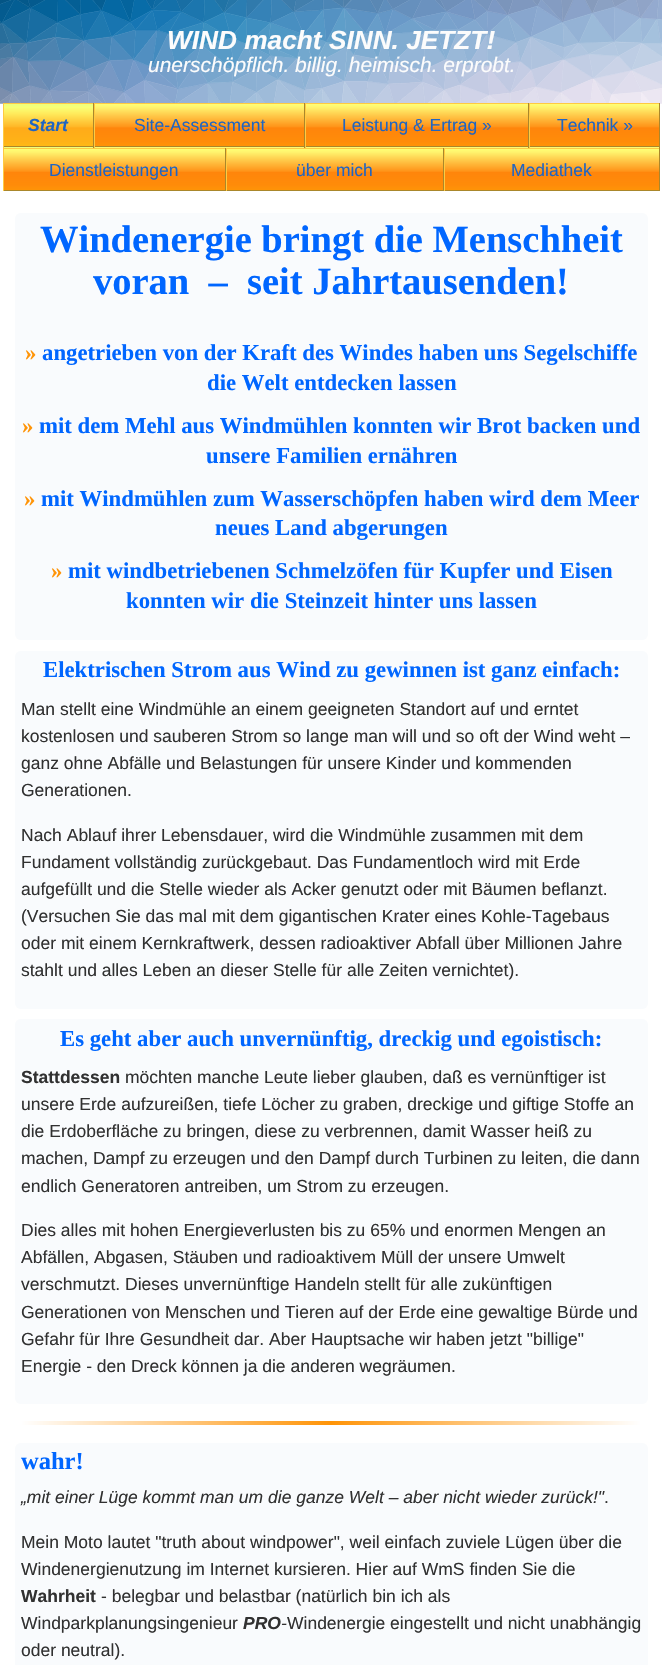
void draw(SkCanvas* canvas) {
    SkPaint paint;
    paint.setAntiAlias(true);
    auto face = [&](const char* family, int weight, float size, bool italic = false) {
        SkFontStyle style(weight, SkFontStyle::kNormal_Width,
            italic ? SkFontStyle::kItalic_Slant : SkFontStyle::kUpright_Slant);
        SkFont result(fontMgr->matchFamilyStyle(family, style), size);
        result.setSubpixel(true);
        return result;
    };
    auto write = [&](const char* s, float x, float y, const SkFont& font, SkColor color) {
        SkPaint ink(SkColor4f::FromColor(color));
        ink.setAntiAlias(true);
        canvas->drawString(s, x, y, font, ink);
    };
    auto block = [&](float x, float y, float w, float h, SkColor color) {
        SkPaint ink(SkColor4f::FromColor(color));
        ink.setAntiAlias(true);
        canvas->drawRect(SkRect::MakeXYWH(x, y, w, h), ink);
    };
    auto card = [&](float x, float y, float w, float h, float radius, SkColor color) {
        SkPaint ink(SkColor4f::FromColor(color));
        ink.setAntiAlias(true);
        canvas->drawRoundRect(SkRect::MakeXYWH(x, y, w, h), radius, radius, ink);
    };
    auto paste = [&](const char* path, float x, float y, float w, float h) {
        auto image = SkImages::DeferredFromEncodedData(SkData::MakeFromFileName(path));
        canvas->drawImageRect(image, SkRect::MakeXYWH(x, y, w, h), SkSamplingOptions());
    };
    canvas->clear(SK_ColorWHITE);
    paste("pic1.png", 0, 0, 662, 104);
    auto kFont1 = face("Liberation Sans", 700, 26.25f, true);
    write("WIND macht SINN. JETZT!", 167, 49, kFont1, SkColorSetRGB(252, 252, 252));
    auto kFont2 = face("Liberation Sans", 400, 21, true);
    write("unerschöpflich. billig. heimisch. erprobt.", 148, 72, kFont2, SkColorSetRGB(252, 252, 252));
    {
        const SkColor colors[] = {SkColorSetRGB(238, 255, 125), SkColorSetRGB(248, 255, 117), SkColorSetRGB(255, 236, 93), SkColorSetRGB(255, 183, 39), SkColorSetRGB(255, 171, 25), SkColorSetRGB(255, 178, 23), SkColorSetRGB(255, 185, 21)};
        const float stops[] = {0, 0.08f, 0.22f, 0.54f, 0.57f, 0.89f, 1};
        const SkPoint ends[] = {{48, 104}, {48, 146}};
        paint.setShader(SkGradientShader::MakeLinear(ends, colors, stops, 7, SkTileMode::kClamp));
        paint.setAlpha(255);
    }
    canvas->drawRect(SkRect::MakeXYWH(4, 104, 89, 42), paint);
    {
        const SkColor colors[] = {SkColorSetRGB(238, 255, 125), SkColorSetRGB(248, 255, 117), SkColorSetRGB(255, 236, 93), SkColorSetRGB(255, 183, 39), SkColorSetRGB(255, 171, 25), SkColorSetRGB(255, 178, 23), SkColorSetRGB(255, 185, 21)};
        const float stops[] = {0, 0.08f, 0.22f, 0.54f, 0.57f, 0.89f, 1};
        const SkPoint ends[] = {{48, 146}, {48, 189}};
        paint.setShader(SkGradientShader::MakeLinear(ends, colors, stops, 7, SkTileMode::kClamp));
        paint.setAlpha(255);
    }
    canvas->drawRect(SkRect::MakeXYWH(3, 147, 91, 1), paint);
    block(3, 103, 657, 1, SkColorSetRGB(255, 202, 65));
    block(93, 103, 1, 45, SkColorSetRGB(170, 135, 43));
    block(3, 146, 91, 1, SkColorSetRGB(170, 135, 43));
    block(3, 103, 1, 45, SkColorSetRGB(255, 202, 65));
    auto kFont3 = face("Liberation Sans", 700, 17.5f, true);
    write("Start", 28, 131, kFont3, SkColorSetRGB(32, 101, 194));
    {
        const SkColor colors[] = {SkColorSetRGB(255, 255, 117), SkColorSetRGB(255, 243, 109), SkColorSetRGB(255, 212, 83), SkColorSetRGB(255, 148, 25), SkColorSetRGB(255, 133, 11), SkColorSetRGB(255, 140, 9), SkColorSetRGB(255, 148, 7)};
        const float stops[] = {0, 0.08f, 0.22f, 0.54f, 0.57f, 0.89f, 1};
        const SkPoint ends[] = {{199, 104}, {199, 146}};
        paint.setShader(SkGradientShader::MakeLinear(ends, colors, stops, 7, SkTileMode::kClamp));
        paint.setAlpha(255);
    }
    canvas->drawRect(SkRect::MakeXYWH(95, 104, 209, 42), paint);
    {
        const SkColor colors[] = {SkColorSetRGB(255, 255, 117), SkColorSetRGB(255, 243, 109), SkColorSetRGB(255, 212, 83), SkColorSetRGB(255, 148, 25), SkColorSetRGB(255, 133, 11), SkColorSetRGB(255, 140, 9), SkColorSetRGB(255, 148, 7)};
        const float stops[] = {0, 0.08f, 0.22f, 0.54f, 0.57f, 0.89f, 1};
        const SkPoint ends[] = {{199, 146}, {199, 189}};
        paint.setShader(SkGradientShader::MakeLinear(ends, colors, stops, 7, SkTileMode::kClamp));
        paint.setAlpha(255);
    }
    canvas->drawRect(SkRect::MakeXYWH(94, 147, 211, 1), paint);
    block(304, 103, 1, 45, SkColorSetRGB(170, 135, 43));
    block(94, 146, 211, 1, SkColorSetRGB(170, 135, 43));
    block(94, 103, 1, 45, SkColorSetRGB(255, 202, 65));
    auto kFont4 = face("Liberation Sans", 400, 17.5f);
    write("Site-Assessment", 134, 131, kFont4, SkColorSetRGB(32, 101, 194));
    {
        const SkColor colors[] = {SkColorSetRGB(255, 255, 117), SkColorSetRGB(255, 243, 109), SkColorSetRGB(255, 212, 83), SkColorSetRGB(255, 148, 25), SkColorSetRGB(255, 133, 11), SkColorSetRGB(255, 140, 9), SkColorSetRGB(255, 148, 7)};
        const float stops[] = {0, 0.08f, 0.22f, 0.54f, 0.57f, 0.89f, 1};
        const SkPoint ends[] = {{417, 104}, {417, 146}};
        paint.setShader(SkGradientShader::MakeLinear(ends, colors, stops, 7, SkTileMode::kClamp));
        paint.setAlpha(255);
    }
    canvas->drawRect(SkRect::MakeXYWH(306, 104, 222, 42), paint);
    {
        const SkColor colors[] = {SkColorSetRGB(255, 255, 117), SkColorSetRGB(255, 243, 109), SkColorSetRGB(255, 212, 83), SkColorSetRGB(255, 148, 25), SkColorSetRGB(255, 133, 11), SkColorSetRGB(255, 140, 9), SkColorSetRGB(255, 148, 7)};
        const float stops[] = {0, 0.08f, 0.22f, 0.54f, 0.57f, 0.89f, 1};
        const SkPoint ends[] = {{417, 146}, {417, 189}};
        paint.setShader(SkGradientShader::MakeLinear(ends, colors, stops, 7, SkTileMode::kClamp));
        paint.setAlpha(255);
    }
    canvas->drawRect(SkRect::MakeXYWH(305, 147, 224, 1), paint);
    block(528, 103, 1, 45, SkColorSetRGB(170, 135, 43));
    block(305, 146, 224, 1, SkColorSetRGB(170, 135, 43));
    block(305, 103, 1, 45, SkColorSetRGB(255, 202, 65));
    write("Leistung & Ertrag »", 342, 131, kFont4, SkColorSetRGB(32, 101, 194));
    {
        const SkColor colors[] = {SkColorSetRGB(255, 255, 117), SkColorSetRGB(255, 243, 109), SkColorSetRGB(255, 212, 83), SkColorSetRGB(255, 148, 25), SkColorSetRGB(255, 133, 11), SkColorSetRGB(255, 140, 9), SkColorSetRGB(255, 148, 7)};
        const float stops[] = {0, 0.08f, 0.22f, 0.54f, 0.57f, 0.89f, 1};
        const SkPoint ends[] = {{594, 104}, {594, 146}};
        paint.setShader(SkGradientShader::MakeLinear(ends, colors, stops, 7, SkTileMode::kClamp));
        paint.setAlpha(255);
    }
    canvas->drawRect(SkRect::MakeXYWH(530, 104, 129, 42), paint);
    {
        const SkColor colors[] = {SkColorSetRGB(255, 255, 117), SkColorSetRGB(255, 243, 109), SkColorSetRGB(255, 212, 83), SkColorSetRGB(255, 148, 25), SkColorSetRGB(255, 133, 11), SkColorSetRGB(255, 140, 9), SkColorSetRGB(255, 148, 7)};
        const float stops[] = {0, 0.08f, 0.22f, 0.54f, 0.57f, 0.89f, 1};
        const SkPoint ends[] = {{594, 146}, {594, 189}};
        paint.setShader(SkGradientShader::MakeLinear(ends, colors, stops, 7, SkTileMode::kClamp));
        paint.setAlpha(255);
    }
    canvas->drawRect(SkRect::MakeXYWH(529, 147, 131, 1), paint);
    block(659, 103, 1, 45, SkColorSetRGB(170, 135, 43));
    block(529, 146, 131, 1, SkColorSetRGB(170, 135, 43));
    block(529, 103, 1, 45, SkColorSetRGB(255, 202, 65));
    write("Technik »", 557, 131, kFont4, SkColorSetRGB(32, 101, 194));
    {
        const SkColor colors[] = {SkColorSetRGB(255, 255, 117), SkColorSetRGB(255, 243, 109), SkColorSetRGB(255, 212, 83), SkColorSetRGB(255, 148, 25), SkColorSetRGB(255, 133, 11), SkColorSetRGB(255, 140, 9), SkColorSetRGB(255, 148, 7)};
        const float stops[] = {0, 0.08f, 0.22f, 0.54f, 0.57f, 0.89f, 1};
        const SkPoint ends[] = {{114, 149}, {114, 190}};
        paint.setShader(SkGradientShader::MakeLinear(ends, colors, stops, 7, SkTileMode::kClamp));
        paint.setAlpha(255);
    }
    canvas->drawRect(SkRect::MakeXYWH(4, 149, 221, 41), paint);
    block(3, 148, 657, 1, SkColorSetRGB(255, 202, 65));
    block(225, 148, 1, 43, SkColorSetRGB(170, 135, 43));
    block(3, 190, 223, 1, SkColorSetRGB(170, 135, 43));
    block(3, 148, 1, 43, SkColorSetRGB(255, 202, 65));
    write("Dienstleistungen", 49, 176, kFont4, SkColorSetRGB(32, 101, 194));
    {
        const SkColor colors[] = {SkColorSetRGB(255, 255, 117), SkColorSetRGB(255, 243, 109), SkColorSetRGB(255, 212, 83), SkColorSetRGB(255, 148, 25), SkColorSetRGB(255, 133, 11), SkColorSetRGB(255, 140, 9), SkColorSetRGB(255, 148, 7)};
        const float stops[] = {0, 0.08f, 0.22f, 0.54f, 0.57f, 0.89f, 1};
        const SkPoint ends[] = {{335, 149}, {335, 190}};
        paint.setShader(SkGradientShader::MakeLinear(ends, colors, stops, 7, SkTileMode::kClamp));
        paint.setAlpha(255);
    }
    canvas->drawRect(SkRect::MakeXYWH(227, 149, 216, 41), paint);
    block(443, 148, 1, 43, SkColorSetRGB(170, 135, 43));
    block(226, 190, 218, 1, SkColorSetRGB(170, 135, 43));
    block(226, 148, 1, 43, SkColorSetRGB(255, 202, 65));
    write("über mich", 296, 176, kFont4, SkColorSetRGB(32, 101, 194));
    {
        const SkColor colors[] = {SkColorSetRGB(255, 255, 117), SkColorSetRGB(255, 243, 109), SkColorSetRGB(255, 212, 83), SkColorSetRGB(255, 148, 25), SkColorSetRGB(255, 133, 11), SkColorSetRGB(255, 140, 9), SkColorSetRGB(255, 148, 7)};
        const float stops[] = {0, 0.08f, 0.22f, 0.54f, 0.57f, 0.89f, 1};
        const SkPoint ends[] = {{552, 149}, {552, 190}};
        paint.setShader(SkGradientShader::MakeLinear(ends, colors, stops, 7, SkTileMode::kClamp));
        paint.setAlpha(255);
    }
    canvas->drawRect(SkRect::MakeXYWH(445, 149, 214, 41), paint);
    block(659, 148, 1, 43, SkColorSetRGB(170, 135, 43));
    block(444, 190, 216, 1, SkColorSetRGB(170, 135, 43));
    block(444, 148, 1, 43, SkColorSetRGB(255, 202, 65));
    write("Mediathek", 511, 176, kFont4, SkColorSetRGB(32, 101, 194));
    card(15, 213, 633, 427, 6, SkColorSetRGB(249, 251, 253));
    auto kFont5 = face("Liberation Serif", 700, 38.5f);
    write("Windenergie bringt die Menschheit", 40, 252, kFont5, SkColorSetRGB(0, 102, 255));
    write("voran  –  seit Jahrtausenden!", 93, 294, kFont5, SkColorSetRGB(0, 102, 255));
    auto kFont6 = face("Liberation Serif", 700, 22.75f);
    write("»", 25, 360, kFont6, SkColorSetRGB(255, 148, 7));
    write("angetrieben von der Kraft des Windes haben uns Segelschiffe", 42, 360, kFont6, SkColorSetRGB(0, 102, 255));
    write("die Welt entdecken lassen", 207, 390, kFont6, SkColorSetRGB(0, 102, 255));
    write("»", 22, 433, kFont6, SkColorSetRGB(255, 148, 7));
    write("mit dem Mehl aus Windmühlen konnten wir Brot backen und", 39, 433, kFont6, SkColorSetRGB(0, 102, 255));
    write("unsere Familien ernähren", 206, 463, kFont6, SkColorSetRGB(0, 102, 255));
    write("»", 24, 506, kFont6, SkColorSetRGB(255, 148, 7));
    write("mit Windmühlen zum Wasserschöpfen haben wird dem Meer", 41, 506, kFont6, SkColorSetRGB(0, 102, 255));
    write("neues Land abgerungen", 215, 535, kFont6, SkColorSetRGB(0, 102, 255));
    write("»", 51, 578, kFont6, SkColorSetRGB(255, 148, 7));
    write("mit windbetriebenen Schmelzöfen für Kupfer und Eisen", 68, 578, kFont6, SkColorSetRGB(0, 102, 255));
    write("konnten wir die Steinzeit hinter uns lassen", 126, 608, kFont6, SkColorSetRGB(0, 102, 255));
    card(15, 651, 633, 358, 6, SkColorSetRGB(249, 251, 253));
    write("Elektrischen Strom aus Wind zu gewinnen ist ganz", 43, 677, kFont6, SkColorSetRGB(0, 102, 255));
    write("einfach:", 542, 677, kFont6, SkColorSetRGB(0, 102, 255));
    write("Man stellt eine Windmühle an einem geeigneten Standort auf und erntet", 21, 715, kFont4, SkColorSetRGB(49, 49, 49));
    write("kostenlosen und sauberen Strom so lange man will und so oft der Wind weht –", 21, 742, kFont4, SkColorSetRGB(49, 49, 49));
    write("ganz ohne Abfälle und Belastungen für unsere Kinder und kommenden", 21, 769, kFont4, SkColorSetRGB(49, 49, 49));
    write("Generationen.", 21, 796, kFont4, SkColorSetRGB(49, 49, 49));
    write("Nach Ablauf ihrer Lebensdauer, wird die Windmühle zusammen mit dem", 21, 841, kFont4, SkColorSetRGB(49, 49, 49));
    write("Fundament vollständig zurückgebaut. Das Fundamentloch wird mit Erde", 21, 868, kFont4, SkColorSetRGB(49, 49, 49));
    write("aufgefüllt und die Stelle wieder als Acker genutzt oder mit Bäumen beflanzt.", 21, 895, kFont4, SkColorSetRGB(49, 49, 49));
    write("(Versuchen Sie das mal mit dem gigantischen Krater eines Kohle-Tagebaus", 21, 922, kFont4, SkColorSetRGB(49, 49, 49));
    write("oder mit einem Kernkraftwerk, dessen radioaktiver Abfall über Millionen Jahre", 21, 949, kFont4, SkColorSetRGB(49, 49, 49));
    write("stahlt und alles Leben an dieser Stelle für alle Zeiten vernichtet).", 21, 976, kFont4, SkColorSetRGB(49, 49, 49));
    card(15, 1019, 633, 385, 6, SkColorSetRGB(249, 251, 253));
    write("Es geht aber auch unvernünftig, dreckig und egoistisch:", 60, 1046, kFont6, SkColorSetRGB(0, 102, 255));
    auto kFont7 = face("Liberation Sans", 700, 17.5f);
    write("Stattdessen", 21, 1083, kFont7, SkColorSetRGB(49, 49, 49));
    write("möchten manche Leute lieber glauben, daß es vernünftiger ist", 125, 1083, kFont4, SkColorSetRGB(49, 49, 49));
    write("unsere Erde aufzureißen, tiefe Löcher zu graben, dreckige und giftige Stoffe an", 21, 1110, kFont4, SkColorSetRGB(49, 49, 49));
    write("die Erdoberfläche zu bringen, diese zu verbrennen, damit Wasser heiß zu", 21, 1137, kFont4, SkColorSetRGB(49, 49, 49));
    write("machen, Dampf zu erzeugen und den Dampf durch Turbinen zu leiten, die dann", 21, 1164, kFont4, SkColorSetRGB(49, 49, 49));
    write("endlich Generatoren antreiben, um Strom zu erzeugen.", 21, 1192, kFont4, SkColorSetRGB(49, 49, 49));
    write("Dies alles mit hohen Energieverlusten bis zu 65% und enormen Mengen an", 21, 1236, kFont4, SkColorSetRGB(49, 49, 49));
    write("Abfällen, Abgasen, Stäuben und radioaktivem Müll der unsere Umwelt", 21, 1263, kFont4, SkColorSetRGB(49, 49, 49));
    write("verschmutzt. Dieses unvernünftige Handeln stellt für alle zukünftigen", 21, 1290, kFont4, SkColorSetRGB(49, 49, 49));
    write("Generationen von Menschen und Tieren auf der Erde eine gewaltige Bürde und", 21, 1318, kFont4, SkColorSetRGB(49, 49, 49));
    write("Gefahr für Ihre Gesundheit dar. Aber Hauptsache wir haben jetzt \"billige\"", 21, 1345, kFont4, SkColorSetRGB(49, 49, 49));
    write("Energie - den Dreck können ja die anderen wegräumen.", 21, 1372, kFont4, SkColorSetRGB(49, 49, 49));
    {
        const SkColor colors[] = {SK_ColorWHITE, SkColorSetRGB(255, 148, 7), SK_ColorWHITE};
        const float stops[] = {0, 0.5f, 1};
        const SkPoint ends[] = {{21, 1423}, {641, 1423}};
        paint.setShader(SkGradientShader::MakeLinear(ends, colors, stops, 3, SkTileMode::kClamp));
        paint.setAlpha(255);
    }
    canvas->drawRect(SkRect::MakeXYWH(21, 1421, 620, 4), paint);
    card(15, 1443, 633, 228, 6, SkColorSetRGB(249, 251, 253));
    auto kFont8 = face("Liberation Serif", 700, 24.5f);
    write("wahr!", 21, 1469, kFont8, SkColorSetRGB(0, 102, 255));
    auto kFont9 = face("Liberation Sans", 400, 17.5f, true);
    write("„mit einer Lüge kommt man um die ganze Welt – aber nicht wieder zurück!\"", 21, 1503, kFont9, SkColorSetRGB(49, 49, 49));
    write(".", 604, 1503, kFont4, SkColorSetRGB(49, 49, 49));
    write("Mein Moto lautet \"truth about windpower\", weil einfach zuviele Lügen über die", 21, 1548, kFont4, SkColorSetRGB(49, 49, 49));
    write("Windenergienutzung im Internet kursieren. Hier auf WmS finden Sie die", 21, 1575, kFont4, SkColorSetRGB(49, 49, 49));
    write("Wahrheit", 21, 1602, kFont7, SkColorSetRGB(49, 49, 49));
    write("- belegbar und belastbar (natürlich bin ich als", 101, 1602, kFont4, SkColorSetRGB(49, 49, 49));
    write("Windparkplanungsingenieur", 21, 1629, kFont4, SkColorSetRGB(49, 49, 49));
    write("PRO", 243, 1629, kFont3, SkColorSetRGB(49, 49, 49));
    write("-", 281, 1629, kFont9, SkColorSetRGB(49, 49, 49));
    write("Windenergie eingestellt und nicht unabhängig", 287, 1629, kFont4, SkColorSetRGB(49, 49, 49));
    write("oder neutral).", 21, 1656, kFont4, SkColorSetRGB(49, 49, 49));
}
